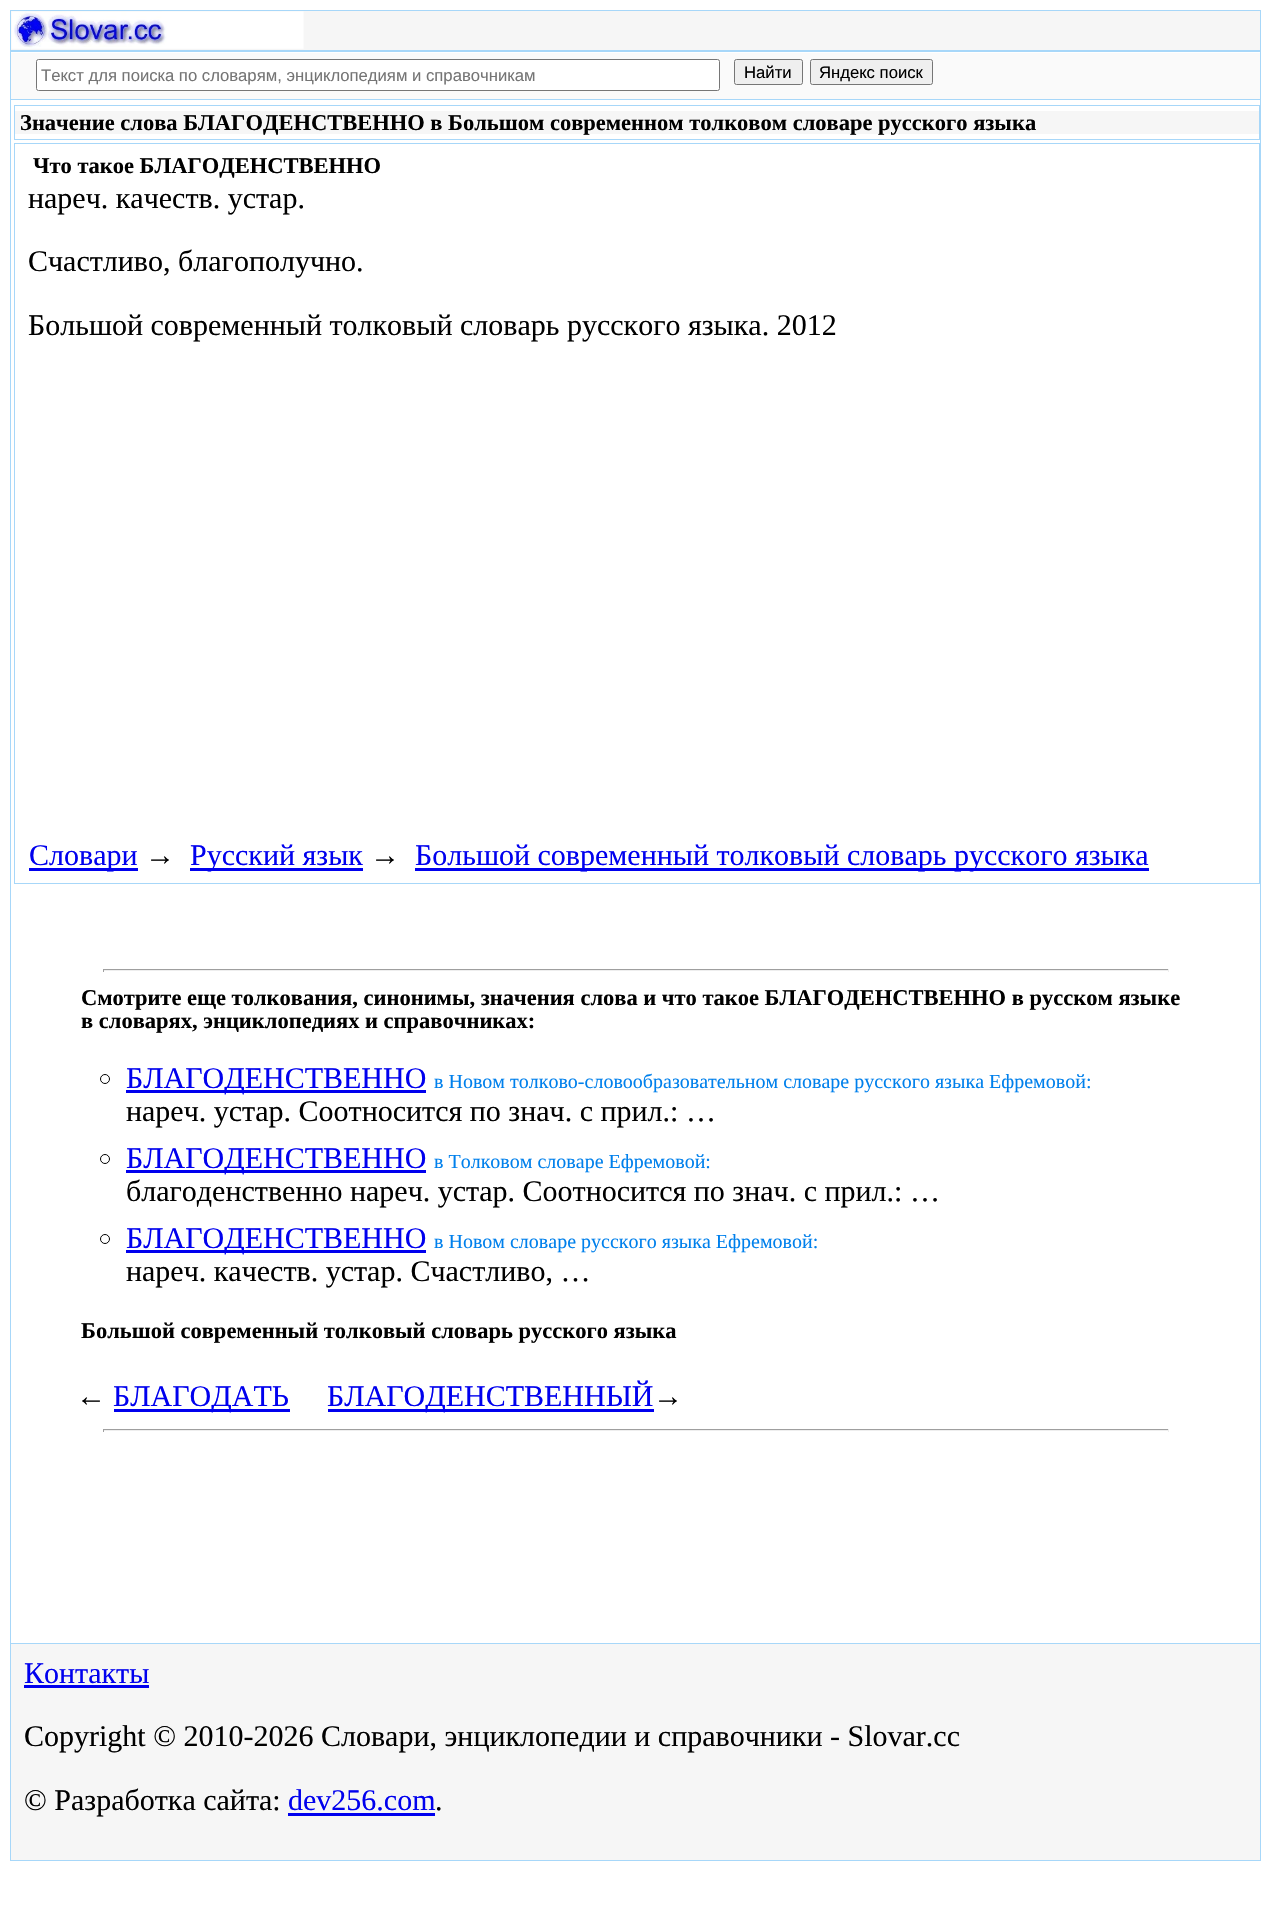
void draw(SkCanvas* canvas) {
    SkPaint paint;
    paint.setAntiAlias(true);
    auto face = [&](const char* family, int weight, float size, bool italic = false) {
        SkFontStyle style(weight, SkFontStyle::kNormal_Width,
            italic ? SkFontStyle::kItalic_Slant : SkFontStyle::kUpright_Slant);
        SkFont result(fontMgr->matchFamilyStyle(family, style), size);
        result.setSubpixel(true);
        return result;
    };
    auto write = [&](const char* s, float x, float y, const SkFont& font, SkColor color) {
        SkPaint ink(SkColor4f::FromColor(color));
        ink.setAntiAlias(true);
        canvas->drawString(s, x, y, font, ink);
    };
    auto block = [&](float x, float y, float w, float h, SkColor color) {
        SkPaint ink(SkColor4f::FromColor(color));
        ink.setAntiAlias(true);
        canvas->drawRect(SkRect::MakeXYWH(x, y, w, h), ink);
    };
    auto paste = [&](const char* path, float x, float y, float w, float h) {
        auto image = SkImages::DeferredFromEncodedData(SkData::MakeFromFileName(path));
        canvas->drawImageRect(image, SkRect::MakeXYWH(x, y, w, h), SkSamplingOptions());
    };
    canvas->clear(SK_ColorWHITE);
    block(1260, 10, 1, 1851, SkColorSetRGB(167, 215, 249));
    block(10, 10, 1, 1851, SkColorSetRGB(167, 215, 249));
    block(11, 11, 1249, 39, SkColorSetRGB(246, 246, 246));
    block(11, 10, 1249, 1, SkColorSetRGB(167, 215, 249));
    block(11, 50, 1249, 2, SkColorSetRGB(167, 215, 249));
    paste("pic1.png", 11, 11, 293, 38);
    block(11, 53, 1249, 46, SkColorSetRGB(250, 250, 250));
    block(11, 99, 1249, 1, SkColorSetRGB(167, 215, 249));
    paint.setColor(SK_ColorWHITE);
    canvas->drawRoundRect(SkRect::MakeXYWH(36.5f, 59.5f, 683, 31), 2, 2, paint);
    paint.setStyle(SkPaint::kStroke_Style);
    paint.setStrokeWidth(1);
    paint.setColor(SkColorSetRGB(118, 118, 118));
    canvas->drawRoundRect(SkRect::MakeXYWH(36.5f, 59.5f, 683, 31), 2, 2, paint);
    auto kFont1 = face("Liberation Sans", 400, 16.7f);
    write("Текст для поиска по словарям, энциклопедиям и справочникам", 41, 81, kFont1, SkColorSetRGB(117, 117, 117));
    paint.setStyle(SkPaint::kFill_Style);
    paint.setColor(SkColorSetRGB(239, 239, 239));
    canvas->drawRoundRect(SkRect::MakeXYWH(734.5f, 59.5f, 68, 25), 2, 2, paint);
    paint.setStyle(SkPaint::kStroke_Style);
    paint.setColor(SkColorSetRGB(118, 118, 118));
    canvas->drawRoundRect(SkRect::MakeXYWH(734.5f, 59.5f, 68, 25), 2, 2, paint);
    write("Найти", 744, 78, kFont1, SK_ColorBLACK);
    paint.setStyle(SkPaint::kFill_Style);
    paint.setColor(SkColorSetRGB(239, 239, 239));
    canvas->drawRoundRect(SkRect::MakeXYWH(810.5f, 59.5f, 122, 25), 2, 2, paint);
    paint.setStyle(SkPaint::kStroke_Style);
    paint.setColor(SkColorSetRGB(118, 118, 118));
    canvas->drawRoundRect(SkRect::MakeXYWH(810.5f, 59.5f, 122, 25), 2, 2, paint);
    write("Яндекс поиск", 819, 78, kFont1, SK_ColorBLACK);
    paint.setColor(SkColorSetRGB(167, 215, 249));
    canvas->drawRect(SkRect::MakeXYWH(14.5f, 105.5f, 1245, 34), paint);
    block(15, 111, 1244, 23, SkColorSetRGB(246, 246, 246));
    auto kFont2 = face("Liberation Serif", 700, 22.5f);
    write("Значение слова БЛАГОДЕНСТВЕННО в Большом современном толковом словаре русского языка", 20, 130, kFont2, SK_ColorBLACK);
    canvas->drawRect(SkRect::MakeXYWH(14.5f, 143.5f, 1245, 740), paint);
    write("Что такое БЛАГОДЕНСТВЕННО", 33, 173, kFont2, SK_ColorBLACK);
    auto kFont3 = face("Liberation Serif", 400, 30);
    write("нареч. качеств. устар.", 28, 208, kFont3, SK_ColorBLACK);
    write("Счастливо, благополучно.", 28, 271, kFont3, SK_ColorBLACK);
    write("Большой современный толковый словарь русского языка. 2012", 28, 335, kFont3, SK_ColorBLACK);
    block(29, 868, 109, 3, SkColorSetRGB(0, 0, 238));
    write("Словари", 29, 865, kFont3, SkColorSetRGB(0, 0, 238));
    write("→", 145, 865, kFont3, SK_ColorBLACK);
    block(190, 868, 173, 3, SkColorSetRGB(0, 0, 238));
    write("Русский язык", 190, 865, kFont3, SkColorSetRGB(0, 0, 238));
    write("→", 370, 865, kFont3, SK_ColorBLACK);
    block(415, 868, 734, 3, SkColorSetRGB(0, 0, 238));
    write("Большой современный толковый словарь русского языка", 415, 865, kFont3, SkColorSetRGB(0, 0, 238));
    block(103, 969, 1066, 1, SkColorSetRGB(159, 159, 159));
    block(1168, 969, 1, 3, SkColorSetRGB(238, 238, 238));
    block(103, 970, 1066, 1, SkColorSetRGB(238, 238, 238));
    block(103, 969, 1, 3, SkColorSetRGB(159, 159, 159));
    write("Смотрите еще толкования, синонимы, значения слова и что такое БЛАГОДЕНСТВЕННО в русском языке", 81, 1005, kFont2, SK_ColorBLACK);
    write("в словарях, энциклопедиях и справочниках:", 81, 1028, kFont2, SK_ColorBLACK);
    paint.setColor(SK_ColorBLACK);
    canvas->drawCircle(105, 1079, 4.5f, paint);
    block(126, 1090, 300, 3, SkColorSetRGB(0, 0, 238));
    write("БЛАГОДЕНСТВЕННО", 126, 1088, kFont3, SkColorSetRGB(0, 0, 238));
    auto kFont4 = face("Liberation Serif", 400, 20);
    write("в Новом толково-словообразовательном словаре русского языка Ефремовой:", 434, 1088, kFont4, SkColorSetRGB(0, 128, 236));
    write("нареч. устар. Соотносится по знач. с прил.: …", 126, 1121, kFont3, SK_ColorBLACK);
    canvas->drawCircle(105, 1159, 4.5f, paint);
    block(126, 1170, 300, 3, SkColorSetRGB(0, 0, 238));
    write("БЛАГОДЕНСТВЕННО", 126, 1168, kFont3, SkColorSetRGB(0, 0, 238));
    write("в Толковом словаре Ефремовой:", 434, 1168, kFont4, SkColorSetRGB(0, 128, 236));
    write("благоденственно нареч. устар. Соотносится по знач. с прил.: …", 126, 1201, kFont3, SK_ColorBLACK);
    canvas->drawCircle(105, 1239, 4.5f, paint);
    block(126, 1250, 300, 3, SkColorSetRGB(0, 0, 238));
    write("БЛАГОДЕНСТВЕННО", 126, 1248, kFont3, SkColorSetRGB(0, 0, 238));
    write("в Новом словаре русского языка Ефремовой:", 434, 1248, kFont4, SkColorSetRGB(0, 128, 236));
    write("нареч. качеств. устар. Счастливо, …", 126, 1281, kFont3, SK_ColorBLACK);
    write("Большой современный толковый словарь русского языка", 81, 1338, kFont2, SK_ColorBLACK);
    write("←", 76, 1406, kFont3, SK_ColorBLACK);
    block(114, 1409, 176, 3, SkColorSetRGB(0, 0, 238));
    write("БЛАГОДАТЬ", 113, 1406, kFont3, SkColorSetRGB(0, 0, 238));
    block(328, 1409, 326, 3, SkColorSetRGB(0, 0, 238));
    write("БЛАГОДЕНСТВЕННЫЙ", 327, 1406, kFont3, SkColorSetRGB(0, 0, 238));
    write("→", 653, 1406, kFont3, SK_ColorBLACK);
    block(103, 1429, 1066, 1, SkColorSetRGB(159, 159, 159));
    block(1168, 1429, 1, 3, SkColorSetRGB(238, 238, 238));
    block(103, 1430, 1066, 1, SkColorSetRGB(238, 238, 238));
    block(103, 1429, 1, 3, SkColorSetRGB(159, 159, 159));
    block(11, 1644, 1249, 216, SkColorSetRGB(246, 246, 246));
    block(11, 1643, 1249, 1, SkColorSetRGB(167, 215, 249));
    block(11, 1860, 1249, 1, SkColorSetRGB(167, 215, 249));
    write("Контакты", 24, 1683, kFont3, SkColorSetRGB(0, 0, 238));
    block(24, 1685, 125, 3, SkColorSetRGB(0, 0, 238));
    write("Copyright © 2010-2026 Словари, энциклопедии и справочники - Slovar.cc", 24, 1746, kFont3, SK_ColorBLACK);
    write("© Разработка сайта:", 24, 1810, kFont3, SK_ColorBLACK);
    write("dev256.com", 288, 1810, kFont3, SkColorSetRGB(0, 0, 238));
    block(288, 1813, 147, 3, SkColorSetRGB(0, 0, 238));
    write(".", 435, 1810, kFont3, SK_ColorBLACK);
}
